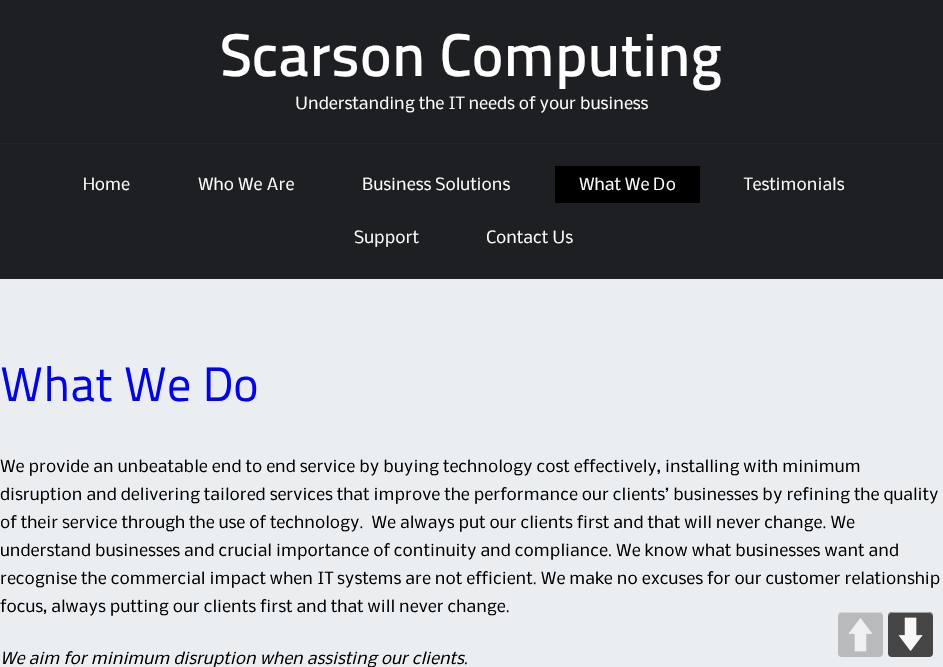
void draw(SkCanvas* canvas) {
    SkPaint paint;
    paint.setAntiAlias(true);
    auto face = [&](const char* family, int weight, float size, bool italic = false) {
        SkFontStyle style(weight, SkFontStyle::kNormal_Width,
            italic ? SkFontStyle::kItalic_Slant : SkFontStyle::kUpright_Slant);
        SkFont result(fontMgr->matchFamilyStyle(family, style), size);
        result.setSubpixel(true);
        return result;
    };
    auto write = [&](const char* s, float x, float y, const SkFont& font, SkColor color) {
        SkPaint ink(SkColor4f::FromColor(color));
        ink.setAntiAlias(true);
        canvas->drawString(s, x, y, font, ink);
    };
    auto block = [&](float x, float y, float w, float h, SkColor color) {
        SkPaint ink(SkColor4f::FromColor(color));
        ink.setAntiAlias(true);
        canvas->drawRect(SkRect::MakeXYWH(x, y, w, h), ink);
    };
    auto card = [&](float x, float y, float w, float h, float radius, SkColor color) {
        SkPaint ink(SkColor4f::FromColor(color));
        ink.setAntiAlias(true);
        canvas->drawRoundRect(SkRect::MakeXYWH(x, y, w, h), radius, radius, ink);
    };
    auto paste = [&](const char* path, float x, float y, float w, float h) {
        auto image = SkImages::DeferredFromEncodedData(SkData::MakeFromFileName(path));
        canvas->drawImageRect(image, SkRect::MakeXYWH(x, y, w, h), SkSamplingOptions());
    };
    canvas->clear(SkColorSetRGB(235, 238, 241));
    block(0, 0, 943, 279, SkColorSetRGB(30, 31, 34));
    auto kFont1 = face("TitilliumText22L", 500, 60);
    write("Scarson Computing", 220, 76, kFont1, SK_ColorWHITE);
    auto kFont2 = face("Nobile", 400, 16);
    write("Understanding the IT needs of your business", 295, 109, kFont2, SK_ColorWHITE);
    block(0, 143, 943, 1, SkColorSetRGB(37, 37, 37));
    write("Home", 83, 190, kFont2, SK_ColorWHITE);
    write("Who We Are", 198, 190, kFont2, SK_ColorWHITE);
    write("Business Solutions", 362, 190, kFont2, SK_ColorWHITE);
    block(555, 166, 145, 37, SK_ColorBLACK);
    write("What We Do", 579, 190, kFont2, SK_ColorWHITE);
    write("Testimonials", 744, 190, kFont2, SK_ColorWHITE);
    write("Support", 354, 243, kFont2, SK_ColorWHITE);
    write("Contact Us", 486, 243, kFont2, SK_ColorWHITE);
    auto kFont3 = face("TitilliumText22L", 400, 48);
    write("What We Do", 0, 401, kFont3, SkColorSetRGB(0, 0, 255));
    write("We provide an unbeatable end to end service by buying technology cost effectively, installing with minimum", 0, 472, kFont2, SK_ColorBLACK);
    write("disruption and delivering tailored services that improve the performance our clients’ businesses by refining the quality", 0, 500, kFont2, SK_ColorBLACK);
    write("of their service through the use of technology.  We always put our clients first and that will never change. We", 0, 528, kFont2, SK_ColorBLACK);
    write("understand businesses and crucial importance of continuity and compliance. We know what businesses want and", 0, 556, kFont2, SK_ColorBLACK);
    write("recognise the commercial impact when IT systems are not efficient. We make no excuses for our customer relationship", 0, 584, kFont2, SK_ColorBLACK);
    write("focus, always putting our clients first and that will never change.", 0, 612, kFont2, SK_ColorBLACK);
    auto kFont4 = face("Nobile", 400, 16, true);
    write("We aim for minimum disruption when assisting our clients.", 0, 664, kFont4, SK_ColorBLACK);
    card(838, 612, 45, 45, 4, SkColorSetRGB(234, 236, 238));
    paste("pic1.png", 838, 612, 45, 45);
    paint.setColor(SkColorSetARGB(128, 241, 243, 245));
    canvas->drawPath(SkPathBuilder().moveTo(842, 613).lineTo(879, 613).cubicTo(881, 613, 883, 615, 883, 617).cubicTo(883, 611, 878, 612, 873, 612).lineTo(848, 612).cubicTo(843, 612, 838, 611, 838, 617).cubicTo(838, 615, 840, 613, 842, 613).close().detach(), paint);
    card(888, 612, 45, 45, 4, SkColorSetRGB(230, 230, 230));
    paste("pic2.png", 888, 612, 45, 45);
    paint.setColor(SkColorSetARGB(128, 255, 255, 255));
    canvas->drawPath(SkPathBuilder().moveTo(892, 613).lineTo(929, 613).cubicTo(931, 613, 933, 615, 933, 617).cubicTo(933, 611, 928, 612, 923, 612).lineTo(898, 612).cubicTo(893, 612, 888, 611, 888, 617).cubicTo(888, 615, 890, 613, 892, 613).close().detach(), paint);
}
